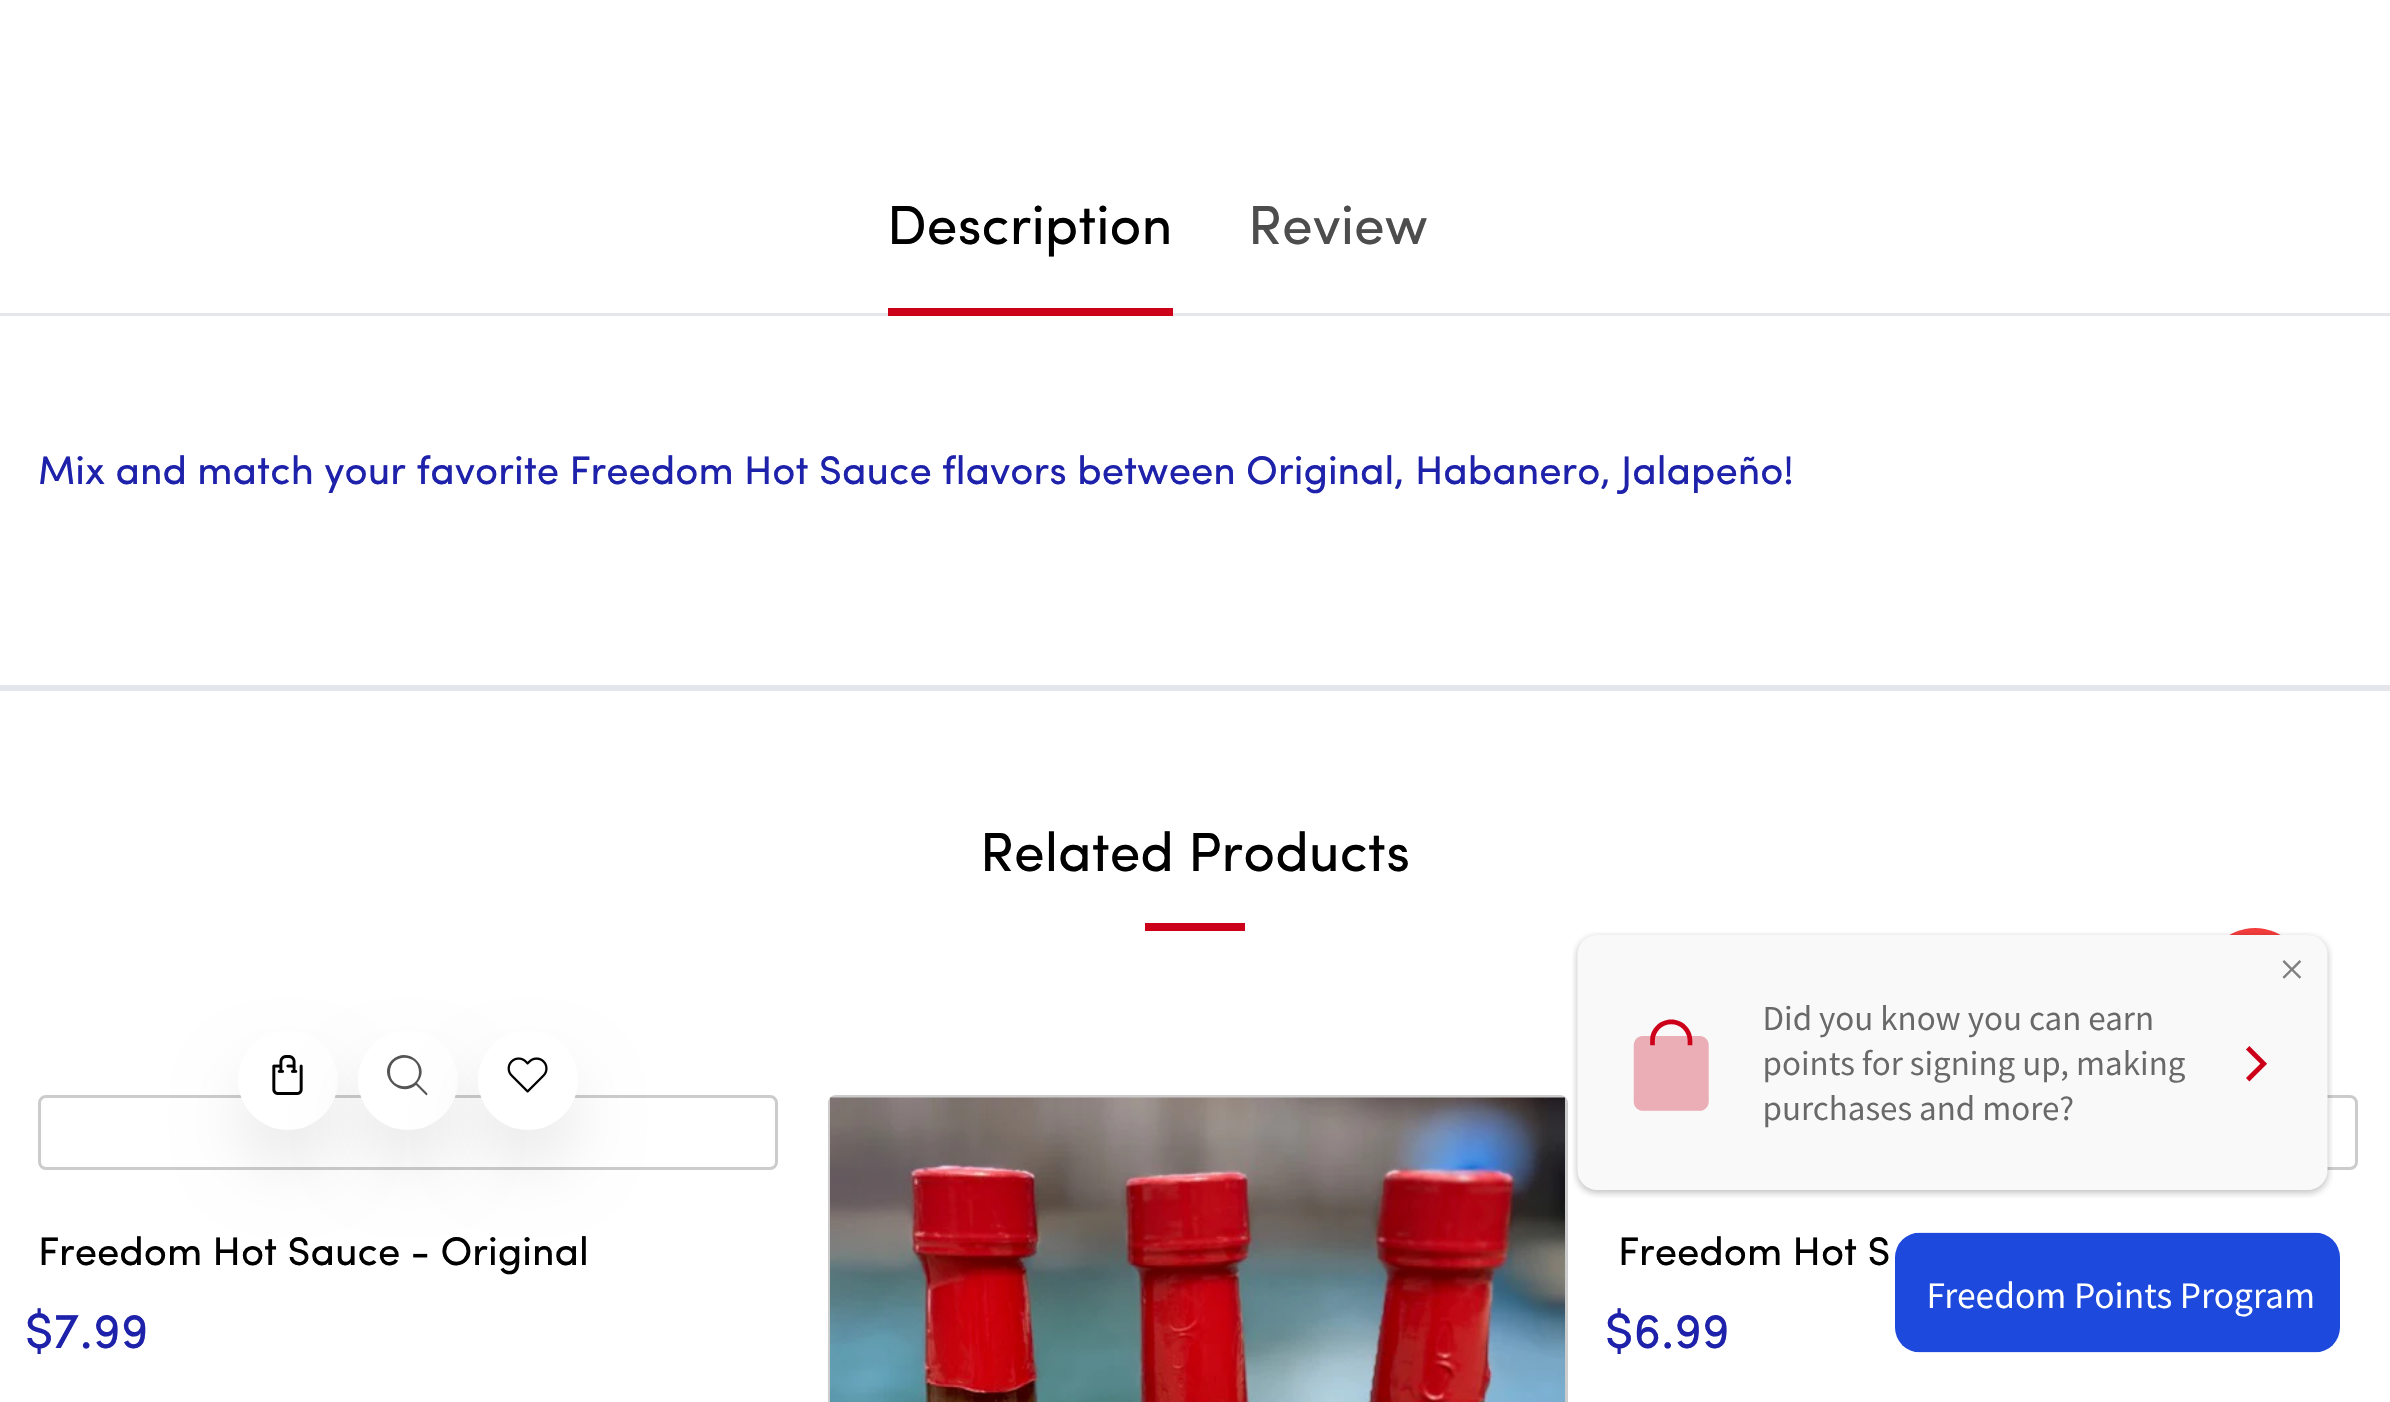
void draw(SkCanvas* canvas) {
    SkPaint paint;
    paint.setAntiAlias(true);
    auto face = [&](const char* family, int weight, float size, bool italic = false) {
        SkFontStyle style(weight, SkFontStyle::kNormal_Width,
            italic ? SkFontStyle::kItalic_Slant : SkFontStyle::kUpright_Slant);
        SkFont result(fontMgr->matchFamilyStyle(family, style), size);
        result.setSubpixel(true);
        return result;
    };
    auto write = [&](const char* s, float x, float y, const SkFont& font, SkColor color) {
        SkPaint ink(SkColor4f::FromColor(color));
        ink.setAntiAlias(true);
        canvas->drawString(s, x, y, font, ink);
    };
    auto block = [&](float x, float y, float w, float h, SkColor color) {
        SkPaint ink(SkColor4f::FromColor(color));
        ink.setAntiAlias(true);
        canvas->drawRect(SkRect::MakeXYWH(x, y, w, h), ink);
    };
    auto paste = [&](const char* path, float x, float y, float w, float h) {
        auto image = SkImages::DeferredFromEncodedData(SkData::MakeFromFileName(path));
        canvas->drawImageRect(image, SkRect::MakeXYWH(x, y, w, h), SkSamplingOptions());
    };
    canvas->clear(SK_ColorWHITE);
    block(0, 313, 2390, 3, SkColorSetRGB(228, 230, 236));
    auto kFont1 = face("Sofia", 400, 55);
    write("Description", 887, 244, kFont1, SK_ColorBLACK);
    block(888, 308, 285, 8, SkColorSetRGB(205, 0, 26));
    write("Review", 1248, 244, kFont1, SkColorSetRGB(77, 77, 77));
    block(0, 685, 2390, 6, SkColorSetRGB(228, 230, 236));
    auto kFont2 = face("Sofia", 400, 40);
    write("Mix and match your favorite Freedom Hot Sauce flavors between Original, Habanero, Jalapeño!", 38, 484, kFont2, SkColorSetRGB(30, 34, 170));
    write("Related Products", 980, 871, kFont1, SK_ColorBLACK);
    block(1145, 923, 100, 8, SkColorSetRGB(205, 0, 26));
    paint.setStyle(SkPaint::kStroke_Style);
    paint.setStrokeWidth(3);
    paint.setColor(SkColorSetRGB(204, 204, 204));
    canvas->drawRoundRect(SkRect::MakeXYWH(39.5f, 1096.5f, 737, 72), 6.5f, 6.5f, paint);
    paint.setStyle(SkPaint::kFill_Style);
    paint.setColor(SkColorSetARGB(20, 0, 0, 0));
    paint.setMaskFilter(SkMaskFilter::MakeBlur(kNormal_SkBlurStyle, 31));
    canvas->drawRoundRect(SkRect::MakeXYWH(238, 1068, 100, 100), 50, 50, paint);
    paint.setMaskFilter(nullptr);
    paint.setColor(SK_ColorWHITE);
    canvas->drawCircle(288, 1080, 50, paint);
    paste("pic1.png", 272, 1055, 31, 40);
    paint.setColor(SkColorSetARGB(20, 0, 0, 0));
    paint.setMaskFilter(SkMaskFilter::MakeBlur(kNormal_SkBlurStyle, 31));
    canvas->drawRoundRect(SkRect::MakeXYWH(358, 1068, 100, 100), 50, 50, paint);
    paint.setMaskFilter(nullptr);
    paint.setColor(SK_ColorWHITE);
    canvas->drawCircle(408, 1080, 50, paint);
    paint.setColor(SkColorSetRGB(85, 85, 85));
    canvas->drawPath(SkPathBuilder().moveTo(427, 1093).cubicTo(428, 1094, 427, 1096, 426, 1095).lineTo(416, 1085).cubicTo(399, 1099, 377, 1075, 392, 1060).cubicTo(408, 1045, 432, 1067, 417, 1083).close().moveTo(390, 1072).cubicTo(390, 1091, 419, 1091, 419, 1072).cubicTo(419, 1053, 390, 1053, 390, 1072).close().detach(), paint);
    paint.setColor(SkColorSetARGB(20, 0, 0, 0));
    paint.setMaskFilter(SkMaskFilter::MakeBlur(kNormal_SkBlurStyle, 31));
    canvas->drawRoundRect(SkRect::MakeXYWH(478, 1068, 100, 100), 50, 50, paint);
    paint.setMaskFilter(nullptr);
    paint.setColor(SK_ColorWHITE);
    canvas->drawCircle(528, 1080, 50, paint);
    paste("pic2.png", 507, 1057, 41, 36);
    write("Freedom Hot Sauce - Original", 38, 1265, kFont2, SK_ColorBLACK);
    auto kFont3 = face("Sofia", 400, 50);
    write("$7.99", 25, 1348, kFont3, SkColorSetRGB(30, 34, 170));
    paint.setStyle(SkPaint::kStroke_Style);
    paint.setColor(SkColorSetRGB(204, 204, 204));
    canvas->drawRoundRect(SkRect::MakeXYWH(829.5f, 1096.5f, 737, 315), 6.5f, 6.5f, paint);
    paste("pic3.png", 830, 1097, 735, 305);
    canvas->drawRoundRect(SkRect::MakeXYWH(1619.5f, 1096.5f, 737, 72), 6.5f, 6.5f, paint);
    write("Freedom Hot S", 1618, 1265, kFont2, SK_ColorBLACK);
    write("$6.99", 1605, 1348, kFont3, SkColorSetRGB(30, 34, 170));
    paint.setStyle(SkPaint::kFill_Style);
    paint.setColor(SkColorSetRGB(243, 60, 60));
    canvas->drawCircle(2255, 978, 50, paint);
    paste("pic4.png", 1572, 932, 761, 266);
    paste("pic5.png", 1894, 1232, 446, 121);
}
